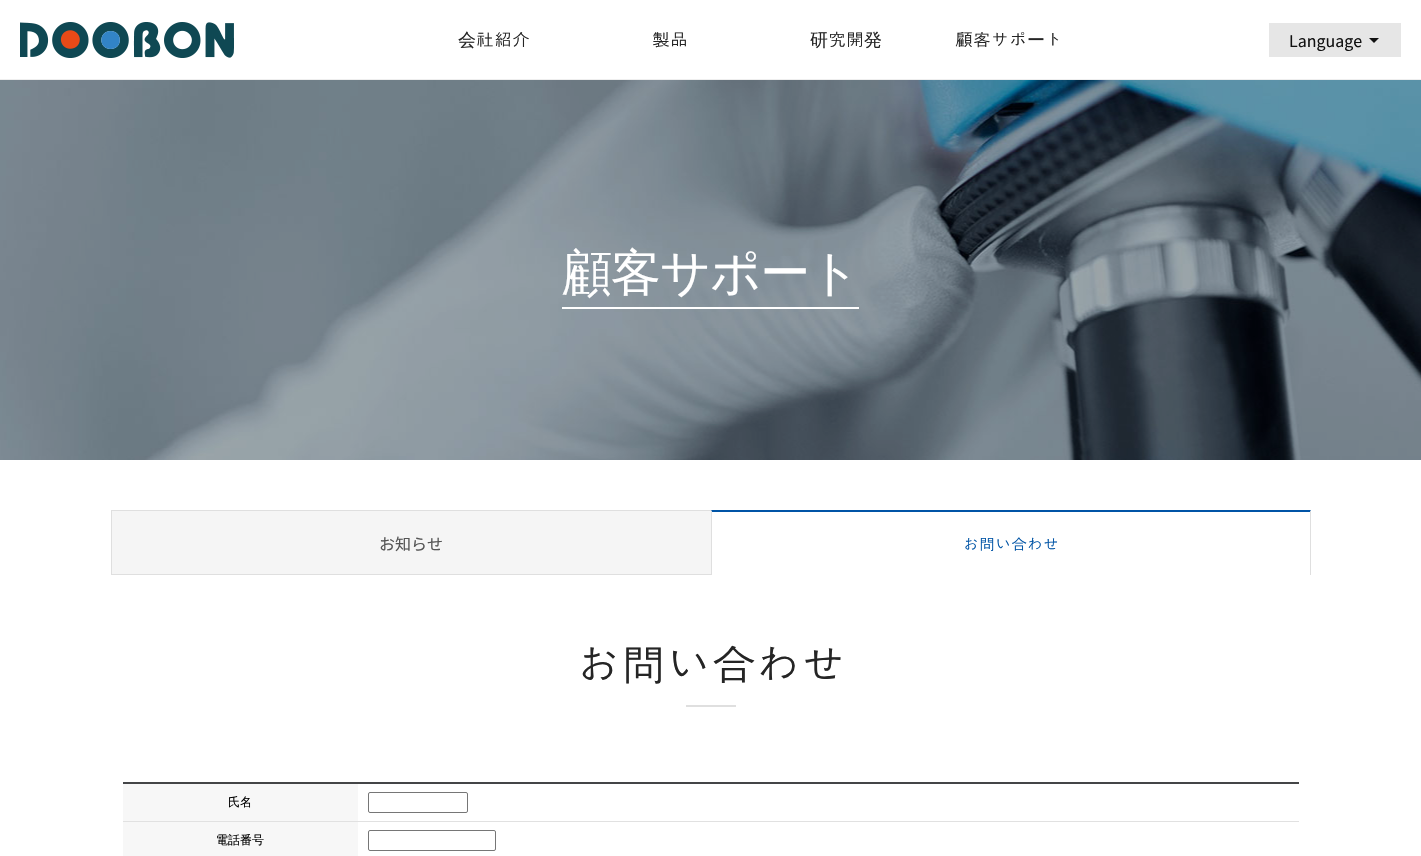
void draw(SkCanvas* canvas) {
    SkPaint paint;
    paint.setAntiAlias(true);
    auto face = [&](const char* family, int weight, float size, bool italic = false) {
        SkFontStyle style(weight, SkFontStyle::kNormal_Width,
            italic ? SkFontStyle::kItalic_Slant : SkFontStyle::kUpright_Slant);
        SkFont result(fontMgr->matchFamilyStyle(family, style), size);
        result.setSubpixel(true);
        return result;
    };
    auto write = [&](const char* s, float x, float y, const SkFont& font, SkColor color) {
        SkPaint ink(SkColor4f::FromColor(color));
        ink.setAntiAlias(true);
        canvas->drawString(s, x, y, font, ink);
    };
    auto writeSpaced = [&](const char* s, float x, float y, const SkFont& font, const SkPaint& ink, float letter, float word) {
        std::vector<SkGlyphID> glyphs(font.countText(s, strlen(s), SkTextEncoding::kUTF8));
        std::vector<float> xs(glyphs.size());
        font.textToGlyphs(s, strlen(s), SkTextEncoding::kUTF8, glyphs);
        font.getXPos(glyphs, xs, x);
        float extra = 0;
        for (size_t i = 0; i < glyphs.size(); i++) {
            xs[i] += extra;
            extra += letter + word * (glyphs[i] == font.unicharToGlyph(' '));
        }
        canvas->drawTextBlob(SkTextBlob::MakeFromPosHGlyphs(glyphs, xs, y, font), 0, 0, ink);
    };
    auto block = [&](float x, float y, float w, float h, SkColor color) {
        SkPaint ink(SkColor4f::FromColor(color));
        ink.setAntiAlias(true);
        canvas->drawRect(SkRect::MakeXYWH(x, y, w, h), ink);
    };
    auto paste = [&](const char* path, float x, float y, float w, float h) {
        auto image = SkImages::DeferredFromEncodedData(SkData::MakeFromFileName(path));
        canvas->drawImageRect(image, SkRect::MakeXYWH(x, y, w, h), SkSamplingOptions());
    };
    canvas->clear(SK_ColorWHITE);
    block(0, 79, 1421, 1, SkColorSetRGB(238, 238, 238));
    paste("pic1.png", 20, 22, 214, 36);
    auto kFont1 = face("WenQuanYi Zen Hei", 500, 18);
    write("会", 458, 46, kFont1, SkColorSetRGB(37, 37, 37));
    auto kFont2 = face("Dotum", 400, 18);
    write("社紹介", 476, 46, kFont2, SkColorSetRGB(37, 37, 37));
    write("製品", 652, 46, kFont2, SkColorSetRGB(37, 37, 37));
    write("研", 810, 46, kFont1, SkColorSetRGB(37, 37, 37));
    write("究開", 828, 46, kFont2, SkColorSetRGB(37, 37, 37));
    write("発", 864, 46, kFont1, SkColorSetRGB(37, 37, 37));
    write("顧客サポ", 955, 46, kFont2, SkColorSetRGB(37, 37, 37));
    write("ー", 1027, 46, kFont1, SkColorSetRGB(37, 37, 37));
    write("ト", 1045, 46, kFont2, SkColorSetRGB(37, 37, 37));
    block(1269, 23, 132, 34, SkColorSetRGB(230, 230, 230));
    auto kFont3 = face("Noto Sans KR", 100, 16);
    write("Language", 1289, 47, kFont3, SkColorSetRGB(17, 17, 17));
    paint.setColor(SkColorSetRGB(17, 17, 17));
    canvas->drawPath(SkPathBuilder().moveTo(1374, 43).lineTo(1369, 38).lineTo(1379, 38).close().detach(), paint);
    paste("pic2.png", 0, 80, 1421, 380);
    block(562, 307, 297, 2, SK_ColorWHITE);
    auto kFont4 = face("WenQuanYi Zen Hei", 500, 50);
    paint.setColor(SK_ColorWHITE);
    writeSpaced("顧客サポート", 562, 290, kFont4, paint, -1, 0);
    block(112, 511, 599, 63, SkColorSetRGB(245, 245, 245));
    block(111, 510, 600, 1, SkColorSetRGB(223, 223, 223));
    block(111, 574, 600, 1, SkColorSetRGB(223, 223, 223));
    block(111, 510, 1, 65, SkColorSetRGB(223, 223, 223));
    write("お知らせ", 379, 550, kFont3, SkColorSetRGB(85, 85, 85));
    paint.setColor(SkColorSetRGB(0, 84, 166));
    canvas->drawPath(SkPathBuilder().moveTo(711, 510).lineTo(1311, 510).lineTo(1310, 512).lineTo(712, 512).close().detach(), paint);
    paint.setColor(SkColorSetRGB(223, 223, 223));
    canvas->drawPath(SkPathBuilder().moveTo(1311, 510).lineTo(1311, 575).lineTo(1310, 575).lineTo(1310, 512).close().detach(), paint);
    canvas->drawPath(SkPathBuilder().moveTo(711, 575).lineTo(711, 510).lineTo(712, 512).lineTo(712, 575).close().detach(), paint);
    auto kFont5 = face("Dotum", 400, 16);
    write("お問い合わせ", 963, 550, kFont5, SkColorSetRGB(0, 84, 166));
    auto kFont6 = face("Dotum", 400, 45);
    write("お問い合わせ", 576, 681, kFont6, SkColorSetRGB(37, 37, 37));
    block(686, 705, 50, 2, SkColorSetRGB(223, 223, 223));
    block(123, 782, 1176, 2, SkColorSetRGB(68, 69, 71));
    block(123, 784, 235, 37, SkColorSetRGB(247, 247, 247));
    block(123, 821, 1176, 1, SkColorSetRGB(225, 225, 225));
    auto kFont7 = face("WenQuanYi Zen Hei", 500, 12);
    write("氏名", 228, 806, kFont7, SK_ColorBLACK);
    paint.setStyle(SkPaint::kStroke_Style);
    paint.setStrokeWidth(1);
    paint.setColor(SkColorSetRGB(118, 118, 118));
    canvas->drawRoundRect(SkRect::MakeXYWH(368.5f, 792.5f, 99, 20), 1.5f, 1.5f, paint);
    block(123, 822, 235, 34, SkColorSetRGB(247, 247, 247));
    write("電話番号", 216, 844, kFont7, SK_ColorBLACK);
    canvas->drawRoundRect(SkRect::MakeXYWH(368.5f, 830.5f, 127, 20), 1.5f, 1.5f, paint);
}
